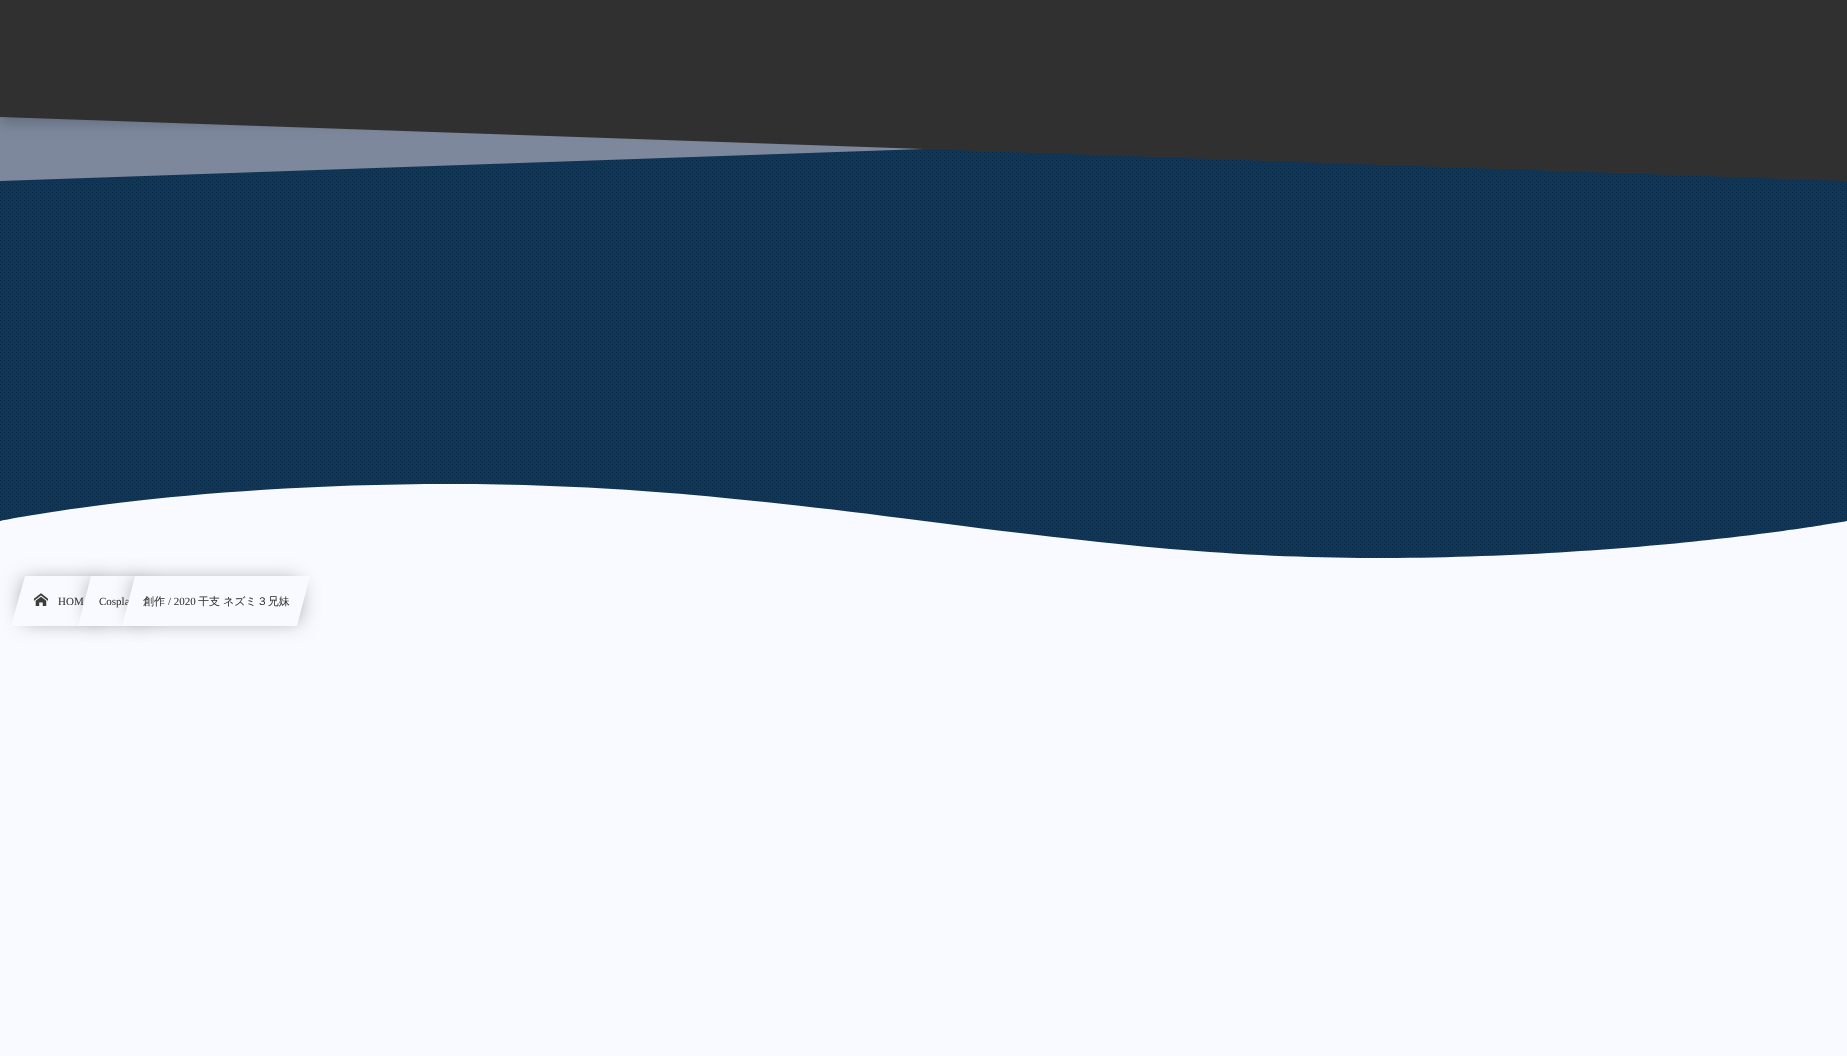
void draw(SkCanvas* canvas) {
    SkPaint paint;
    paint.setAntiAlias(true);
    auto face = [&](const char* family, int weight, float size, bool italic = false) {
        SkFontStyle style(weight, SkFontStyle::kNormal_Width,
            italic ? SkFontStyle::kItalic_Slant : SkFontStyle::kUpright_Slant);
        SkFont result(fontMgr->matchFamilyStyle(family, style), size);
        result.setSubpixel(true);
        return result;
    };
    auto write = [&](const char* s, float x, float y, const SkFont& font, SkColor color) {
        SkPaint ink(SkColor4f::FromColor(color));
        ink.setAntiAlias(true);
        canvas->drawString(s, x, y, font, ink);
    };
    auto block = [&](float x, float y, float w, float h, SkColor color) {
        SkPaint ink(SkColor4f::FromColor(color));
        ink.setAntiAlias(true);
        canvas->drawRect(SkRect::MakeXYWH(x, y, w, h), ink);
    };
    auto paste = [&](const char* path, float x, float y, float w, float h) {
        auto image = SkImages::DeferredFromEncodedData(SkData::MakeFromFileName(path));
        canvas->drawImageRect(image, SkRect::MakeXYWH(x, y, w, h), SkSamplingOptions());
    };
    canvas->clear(SkColorSetRGB(249, 250, 255));
    block(0, 149, 1847, 409, SkColorSetRGB(14, 55, 92));
    paste("pic1.png", 0, 150, 1847, 407);
    paint.setColor(SkColorSetRGB(125, 136, 157));
    canvas->drawPath(SkPathBuilder().moveTo(0, -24).lineTo(1847, -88).lineTo(1847, 117).lineTo(0, 181).close().detach(), paint);
    paint.setColor(SkColorSetARGB(46, 0, 0, 0));
    paint.setMaskFilter(SkMaskFilter::MakeBlur(kNormal_SkBlurStyle, 6));
    canvas->drawRect(SkRect::MakeXYWH(0, -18, 1847, 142), paint);
    paint.setMaskFilter(nullptr);
    paint.setColor(SkColorSetRGB(48, 48, 48));
    canvas->drawPath(SkPathBuilder().moveTo(0, -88).lineTo(1847, -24).lineTo(1847, 181).lineTo(0, 117).close().detach(), paint);
    paint.setColor(SkColorSetRGB(249, 250, 255));
    canvas->drawPath(SkPathBuilder().moveTo(1847, 521).cubicTo(1847, 521, 1653, 557, 1385, 558).cubicTo(1247, 558, 1140, 549, 924, 521).cubicTo(717, 494, 597, 485, 462, 484).cubicTo(180, 483, 0, 521, 0, 521).lineTo(0, 558).lineTo(1847, 558).close().detach(), paint);
    paint.setColor(SkColorSetARGB(117, 0, 0, 0));
    paint.setMaskFilter(SkMaskFilter::MakeBlur(kNormal_SkBlurStyle, 10));
    canvas->drawRect(SkRect::MakeXYWH(24, 582, 75, 38), paint);
    paint.setMaskFilter(nullptr);
    paint.setColor(SkColorSetRGB(249, 250, 255));
    canvas->drawPath(SkPathBuilder().moveTo(25, 576).lineTo(111, 576).lineTo(98, 626).lineTo(11, 626).close().detach(), paint);
    paste("pic2.png", 33, 593, 15, 13);
    auto kFont1 = face("Liberation Serif", 400, 11);
    write("HOM", 58, 605, kFont1, SkColorSetRGB(60, 60, 60));
    paint.setColor(SkColorSetARGB(117, 0, 0, 0));
    paint.setMaskFilter(SkMaskFilter::MakeBlur(kNormal_SkBlurStyle, 10));
    canvas->drawRect(SkRect::MakeXYWH(91, 582, 52, 38), paint);
    paint.setMaskFilter(nullptr);
    paint.setColor(SkColorSetRGB(249, 250, 255));
    canvas->drawPath(SkPathBuilder().moveTo(91, 576).lineTo(155, 576).lineTo(142, 626).lineTo(78, 626).close().detach(), paint);
    write("Cospla", 99, 605, kFont1, SkColorSetRGB(60, 60, 60));
    paint.setColor(SkColorSetARGB(117, 0, 0, 0));
    paint.setMaskFilter(SkMaskFilter::MakeBlur(kNormal_SkBlurStyle, 10));
    canvas->drawRect(SkRect::MakeXYWH(135, 582, 163, 38), paint);
    paint.setMaskFilter(nullptr);
    paint.setColor(SkColorSetRGB(249, 250, 255));
    canvas->drawPath(SkPathBuilder().moveTo(135, 576).lineTo(310, 576).lineTo(297, 626).lineTo(122, 626).close().detach(), paint);
    auto kFont2 = face("WenQuanYi Zen Hei", 500, 11);
    write("創作", 143, 605, kFont2, SkColorSetRGB(60, 60, 60));
    write("/ 2020", 168, 605, kFont1, SkColorSetRGB(60, 60, 60));
    write("干支", 198, 605, kFont2, SkColorSetRGB(60, 60, 60));
    write("ネズミ３兄妹", 223, 605, kFont2, SkColorSetRGB(60, 60, 60));
}
